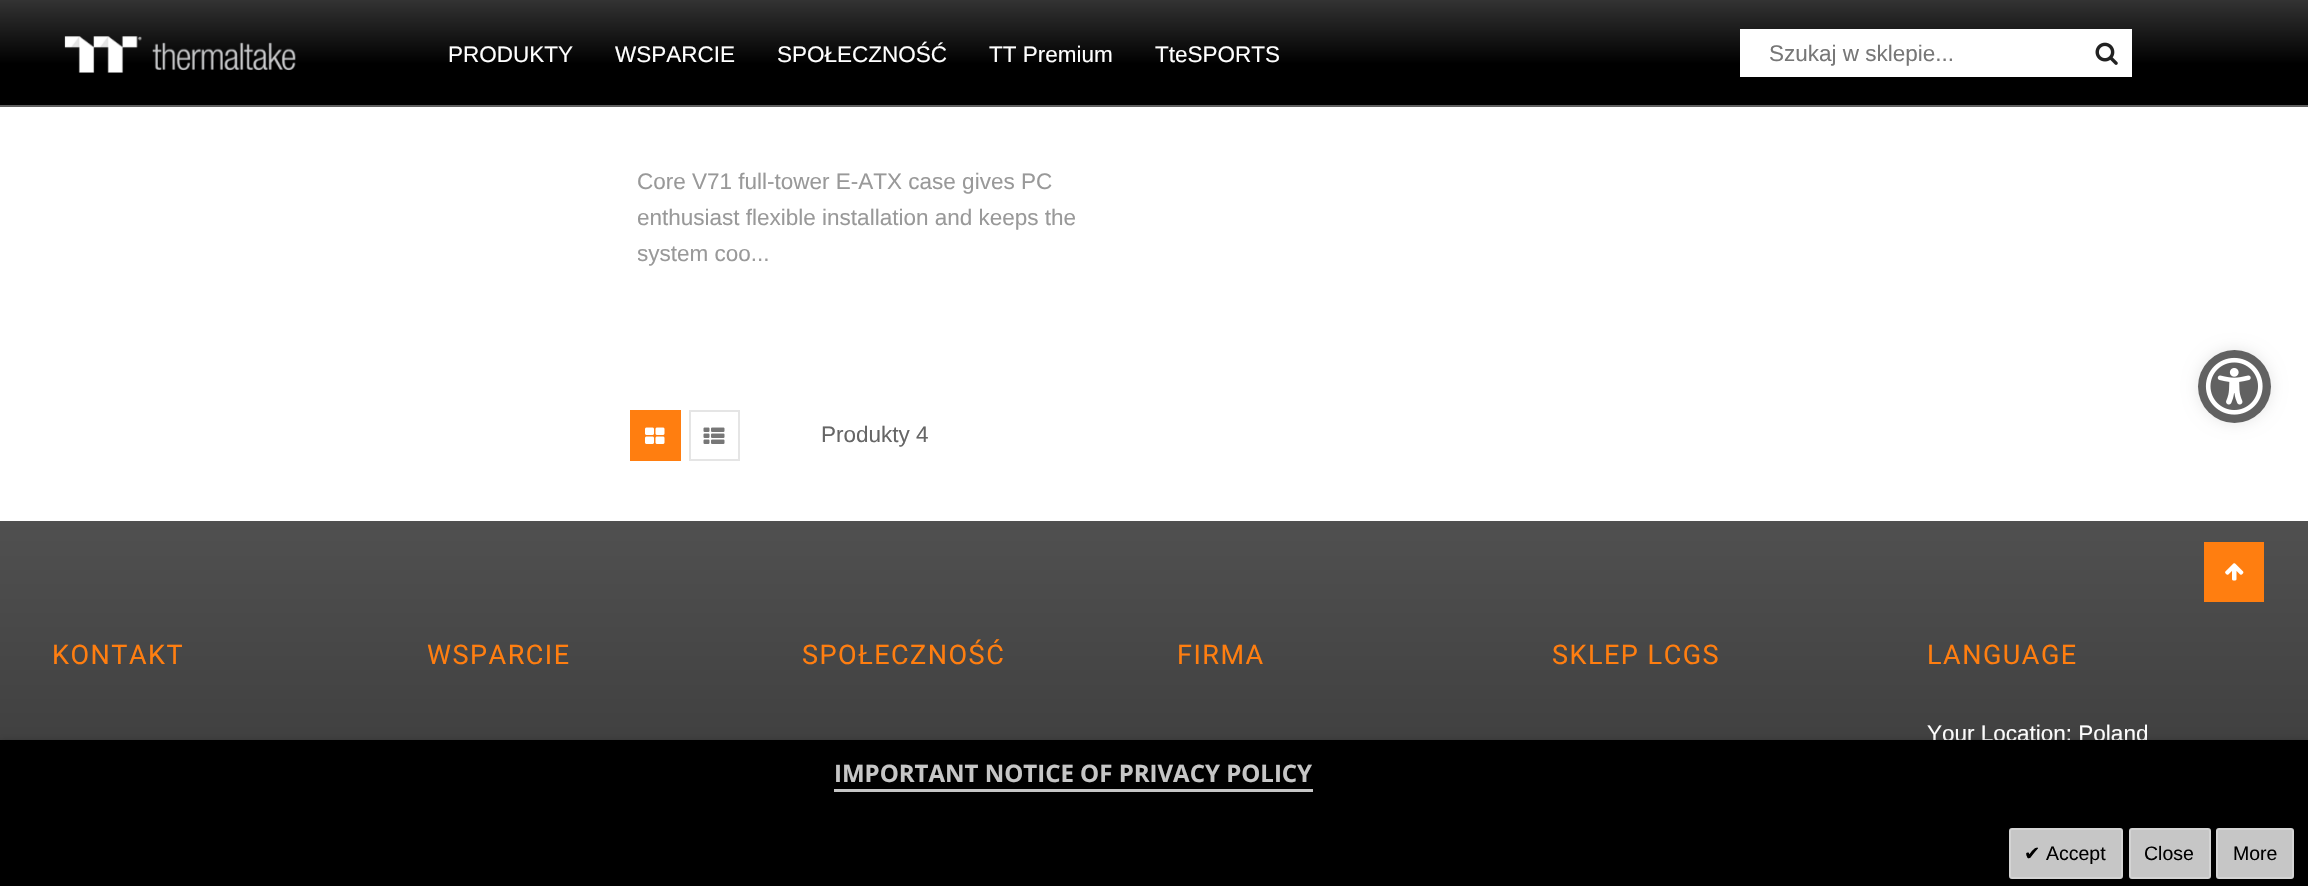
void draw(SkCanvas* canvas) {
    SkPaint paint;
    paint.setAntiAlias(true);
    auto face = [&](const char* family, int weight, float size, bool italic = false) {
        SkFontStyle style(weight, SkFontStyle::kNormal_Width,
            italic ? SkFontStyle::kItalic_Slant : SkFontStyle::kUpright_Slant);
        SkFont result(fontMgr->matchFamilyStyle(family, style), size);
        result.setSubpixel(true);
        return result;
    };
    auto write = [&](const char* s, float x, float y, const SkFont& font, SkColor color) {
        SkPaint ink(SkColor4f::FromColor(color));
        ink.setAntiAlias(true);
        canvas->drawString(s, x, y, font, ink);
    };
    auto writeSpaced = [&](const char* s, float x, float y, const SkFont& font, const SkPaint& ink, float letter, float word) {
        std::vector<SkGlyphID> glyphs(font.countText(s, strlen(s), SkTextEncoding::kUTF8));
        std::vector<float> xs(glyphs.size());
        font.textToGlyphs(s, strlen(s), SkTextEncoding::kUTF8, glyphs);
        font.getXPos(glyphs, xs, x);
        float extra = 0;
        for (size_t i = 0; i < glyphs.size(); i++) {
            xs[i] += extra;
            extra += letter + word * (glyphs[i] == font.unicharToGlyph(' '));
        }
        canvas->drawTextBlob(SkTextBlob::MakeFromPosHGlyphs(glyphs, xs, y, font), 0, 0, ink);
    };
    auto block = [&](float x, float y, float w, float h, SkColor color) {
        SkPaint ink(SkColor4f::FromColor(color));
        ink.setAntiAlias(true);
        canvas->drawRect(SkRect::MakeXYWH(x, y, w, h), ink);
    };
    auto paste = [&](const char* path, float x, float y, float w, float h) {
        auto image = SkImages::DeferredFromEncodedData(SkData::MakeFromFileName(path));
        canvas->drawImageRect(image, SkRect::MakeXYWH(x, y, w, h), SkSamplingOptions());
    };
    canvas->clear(SK_ColorWHITE);
    {
        const SkColor colors[] = {SkColorSetRGB(51, 51, 51), SK_ColorBLACK};
        const float stops[] = {0, 0.61f};
        const SkPoint ends[] = {{1154, 0}, {1154, 105}};
        paint.setShader(SkGradientShader::MakeLinear(ends, colors, stops, 2, SkTileMode::kClamp));
        paint.setAlpha(255);
    }
    canvas->drawRect(SkRect::MakeXYWH(0, 0, 2308, 105), paint);
    block(0, 105, 2308, 2, SkColorSetRGB(95, 95, 95));
    paste("pic1.png", 64, 36, 232, 37);
    auto kFont1 = face("Liberation Sans", 400, 22.5f);
    write("PRODUKTY", 448, 62, kFont1, SK_ColorWHITE);
    write("WSPARCIE", 615, 62, kFont1, SK_ColorWHITE);
    write("SPOŁECZNOŚĆ", 777, 62, kFont1, SK_ColorWHITE);
    write("TT Premium", 989, 62, kFont1, SK_ColorWHITE);
    write("TteSPORTS", 1155, 62, kFont1, SK_ColorWHITE);
    block(1740, 29, 392, 48, SK_ColorWHITE);
    write("Szukaj w sklepie...", 1769, 61, kFont1, SkColorSetRGB(119, 119, 119));
    paste("pic2.png", 2095, 42, 23, 23);
    write("Core V71 full-tower E-ATX case gives PC", 637, 189, kFont1, SkColorSetRGB(153, 153, 153));
    canvas->save();
    canvas->clipRect(SkRect::MakeXYWH(638, 164, 471, 150));
    write("enthusiast flexible installation and keeps the", 637, 225, kFont1, SkColorSetRGB(153, 153, 153));
    write("system coo...", 637, 261, kFont1, SkColorSetRGB(153, 153, 153));
    canvas->restore();
    block(630, 410, 51, 51, SkColorSetRGB(255, 126, 16));
    paste("pic3.png", 645, 427, 20, 17);
    paint.setStyle(SkPaint::kStroke_Style);
    paint.setStrokeWidth(2);
    paint.setShader(nullptr);
    paint.setColor(SkColorSetRGB(229, 229, 229));
    canvas->drawRect(SkRect::MakeXYWH(690, 411, 49, 49), paint);
    paste("pic4.png", 703, 427, 22, 17);
    write("Produkty 4", 821, 442, kFont1, SkColorSetRGB(102, 102, 102));
    paint.setStyle(SkPaint::kFill_Style);
    {
        const SkColor colors[] = {SkColorSetRGB(80, 80, 80), SkColorSetRGB(38, 38, 38)};
        const float stops[] = {0, 1};
        const SkPoint ends[] = {{1154, 520}, {1154, 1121}};
        paint.setShader(SkGradientShader::MakeLinear(ends, colors, stops, 2, SkTileMode::kClamp));
        paint.setAlpha(255);
    }
    canvas->drawRect(SkRect::MakeXYWH(0, 521, 2308, 219), paint);
    block(2204, 542, 60, 60, SkColorSetRGB(255, 126, 16));
    paste("pic5.png", 2225, 563, 19, 18);
    auto kFont2 = face("Roboto", 400, 27);
    paint.setShader(nullptr);
    paint.setColor(SkColorSetRGB(255, 126, 16));
    writeSpaced("KONTAKT", 52, 664, kFont2, paint, 1.5f, 0);
    writeSpaced("WSPARCIE", 427, 664, kFont2, paint, 1.5f, 0);
    writeSpaced("SPOŁECZNOŚĆ", 802, 664, kFont2, paint, 1.5f, 0);
    writeSpaced("FIRMA", 1177, 664, kFont2, paint, 1.5f, 0);
    writeSpaced("SKLEP LCGS", 1552, 664, kFont2, paint, 1.5f, 0);
    writeSpaced("LANGUAGE", 1927, 664, kFont2, paint, 1.5f, 0);
    write("Your Location: Poland", 1927, 741, kFont1, SK_ColorWHITE);
    paint.setColor(SkColorSetARGB(120, 0, 0, 0));
    paint.setMaskFilter(SkMaskFilter::MakeBlur(kNormal_SkBlurStyle, 4));
    canvas->drawRect(SkRect::MakeXYWH(0, 743, 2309, 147), paint);
    paint.setMaskFilter(nullptr);
    block(0, 740, 2308, 146, SK_ColorBLACK);
    auto kFont3 = face("Open Sans", 700, 24);
    write("IMPORTANT NOTICE OF PRIVACY POLICY", 834, 782, kFont3, SkColorSetRGB(198, 198, 198));
    block(834, 789, 479, 3, SkColorSetRGB(198, 198, 198));
    paint.setColor(SkColorSetRGB(198, 198, 198));
    canvas->drawRoundRect(SkRect::MakeXYWH(2010, 829, 112, 49), 2, 2, paint);
    paint.setStyle(SkPaint::kStroke_Style);
    paint.setColor(SkColorSetRGB(212, 212, 212));
    canvas->drawRoundRect(SkRect::MakeXYWH(2010, 829, 112, 49), 2, 2, paint);
    auto kFont4 = face("DejaVu Sans", 400, 19.5f);
    write("✔", 2024, 860, kFont4, SK_ColorBLACK);
    auto kFont5 = face("Liberation Sans", 400, 19.5f);
    write("Accept", 2046, 860, kFont5, SK_ColorBLACK);
    paint.setStyle(SkPaint::kFill_Style);
    paint.setColor(SkColorSetRGB(198, 198, 198));
    canvas->drawRoundRect(SkRect::MakeXYWH(2130, 829, 80, 49), 2, 2, paint);
    paint.setStyle(SkPaint::kStroke_Style);
    paint.setColor(SkColorSetRGB(212, 212, 212));
    canvas->drawRoundRect(SkRect::MakeXYWH(2130, 829, 80, 49), 2, 2, paint);
    write("Close", 2144, 860, kFont5, SK_ColorBLACK);
    paint.setStyle(SkPaint::kFill_Style);
    paint.setColor(SkColorSetRGB(198, 198, 198));
    canvas->drawRoundRect(SkRect::MakeXYWH(2217, 829, 76, 49), 2, 2, paint);
    paint.setStyle(SkPaint::kStroke_Style);
    paint.setColor(SkColorSetRGB(212, 212, 212));
    canvas->drawRoundRect(SkRect::MakeXYWH(2217, 829, 76, 49), 2, 2, paint);
    write("More", 2233, 860, kFont5, SK_ColorBLACK);
    paint.setStyle(SkPaint::kFill_Style);
    paint.setColor(SkColorSetARGB(26, 0, 0, 0));
    paint.setMaskFilter(SkMaskFilter::MakeBlur(kNormal_SkBlurStyle, 7.5f));
    canvas->drawRoundRect(SkRect::MakeXYWH(2198, 350, 73, 73), 36.5f, 36.5f, paint);
    paint.setMaskFilter(nullptr);
    paint.setColor(SkColorSetRGB(97, 97, 97));
    canvas->drawCircle(2234.5f, 386.5f, 36.5f, paint);
    paste("pic6.png", 2205, 357, 58, 58);
}
